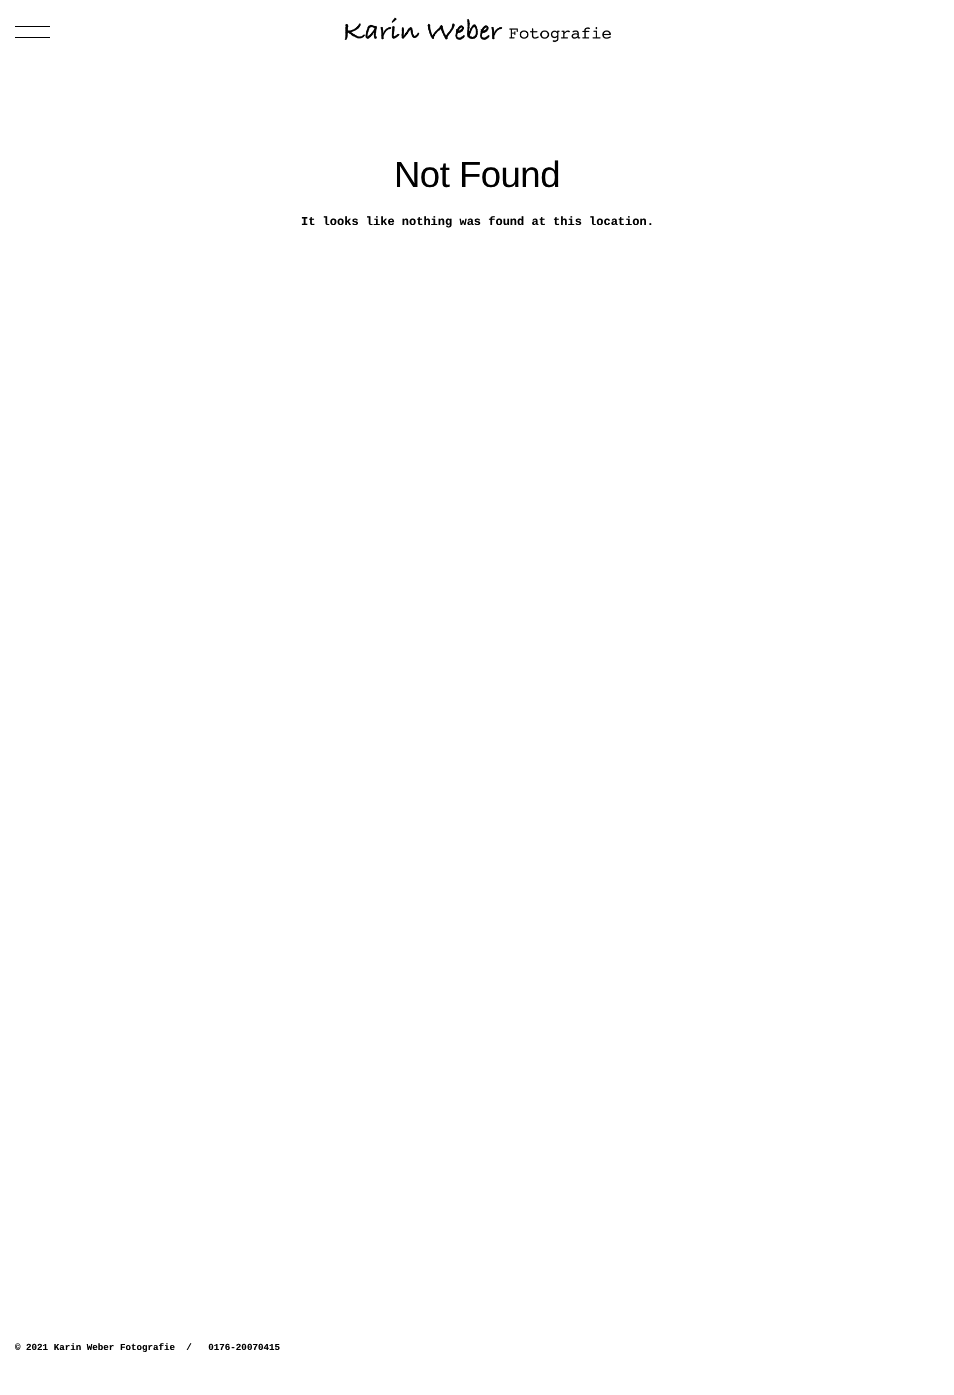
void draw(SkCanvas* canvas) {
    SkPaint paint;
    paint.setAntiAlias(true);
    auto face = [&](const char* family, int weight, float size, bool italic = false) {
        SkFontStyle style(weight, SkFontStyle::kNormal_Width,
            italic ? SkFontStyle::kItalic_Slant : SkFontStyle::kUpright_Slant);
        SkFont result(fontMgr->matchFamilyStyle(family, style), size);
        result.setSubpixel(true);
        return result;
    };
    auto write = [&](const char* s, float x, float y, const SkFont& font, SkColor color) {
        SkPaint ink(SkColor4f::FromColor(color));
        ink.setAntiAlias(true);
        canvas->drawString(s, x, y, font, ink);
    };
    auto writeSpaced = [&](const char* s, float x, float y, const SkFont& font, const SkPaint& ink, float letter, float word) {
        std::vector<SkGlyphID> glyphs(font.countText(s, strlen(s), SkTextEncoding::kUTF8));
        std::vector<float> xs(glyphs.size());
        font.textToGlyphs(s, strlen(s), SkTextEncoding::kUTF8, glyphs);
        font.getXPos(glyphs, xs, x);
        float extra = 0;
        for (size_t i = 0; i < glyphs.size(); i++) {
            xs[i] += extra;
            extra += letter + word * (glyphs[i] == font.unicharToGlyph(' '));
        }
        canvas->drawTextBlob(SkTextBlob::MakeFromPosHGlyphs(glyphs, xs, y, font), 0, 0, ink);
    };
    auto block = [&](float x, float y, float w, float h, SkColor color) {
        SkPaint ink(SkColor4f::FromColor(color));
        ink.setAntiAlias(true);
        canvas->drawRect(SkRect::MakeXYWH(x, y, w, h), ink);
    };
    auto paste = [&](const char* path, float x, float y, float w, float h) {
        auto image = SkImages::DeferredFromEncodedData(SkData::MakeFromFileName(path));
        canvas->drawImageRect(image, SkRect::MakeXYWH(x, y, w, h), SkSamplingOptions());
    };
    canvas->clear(SK_ColorWHITE);
    block(15, 26, 35, 1, SK_ColorBLACK);
    block(15, 37, 35, 1, SK_ColorBLACK);
    paste("pic1.png", 344, 17, 267, 26);
    auto kFont1 = face("Liberation Sans", 400, 36.5f);
    paint.setColor(SK_ColorBLACK);
    writeSpaced("Not Found", 394, 187, kFont1, paint, -0.5f, 0);
    auto kFont2 = face("Liberation Mono", 700, 12);
    write("It looks like nothing was found at this location.", 301, 225, kFont2, SK_ColorBLACK);
    auto kFont3 = face("Liberation Mono", 700, 9.2f);
    write("© 2021 Karin Weber Fotografie  /   0176-20070415", 15, 1350, kFont3, SK_ColorBLACK);
}
